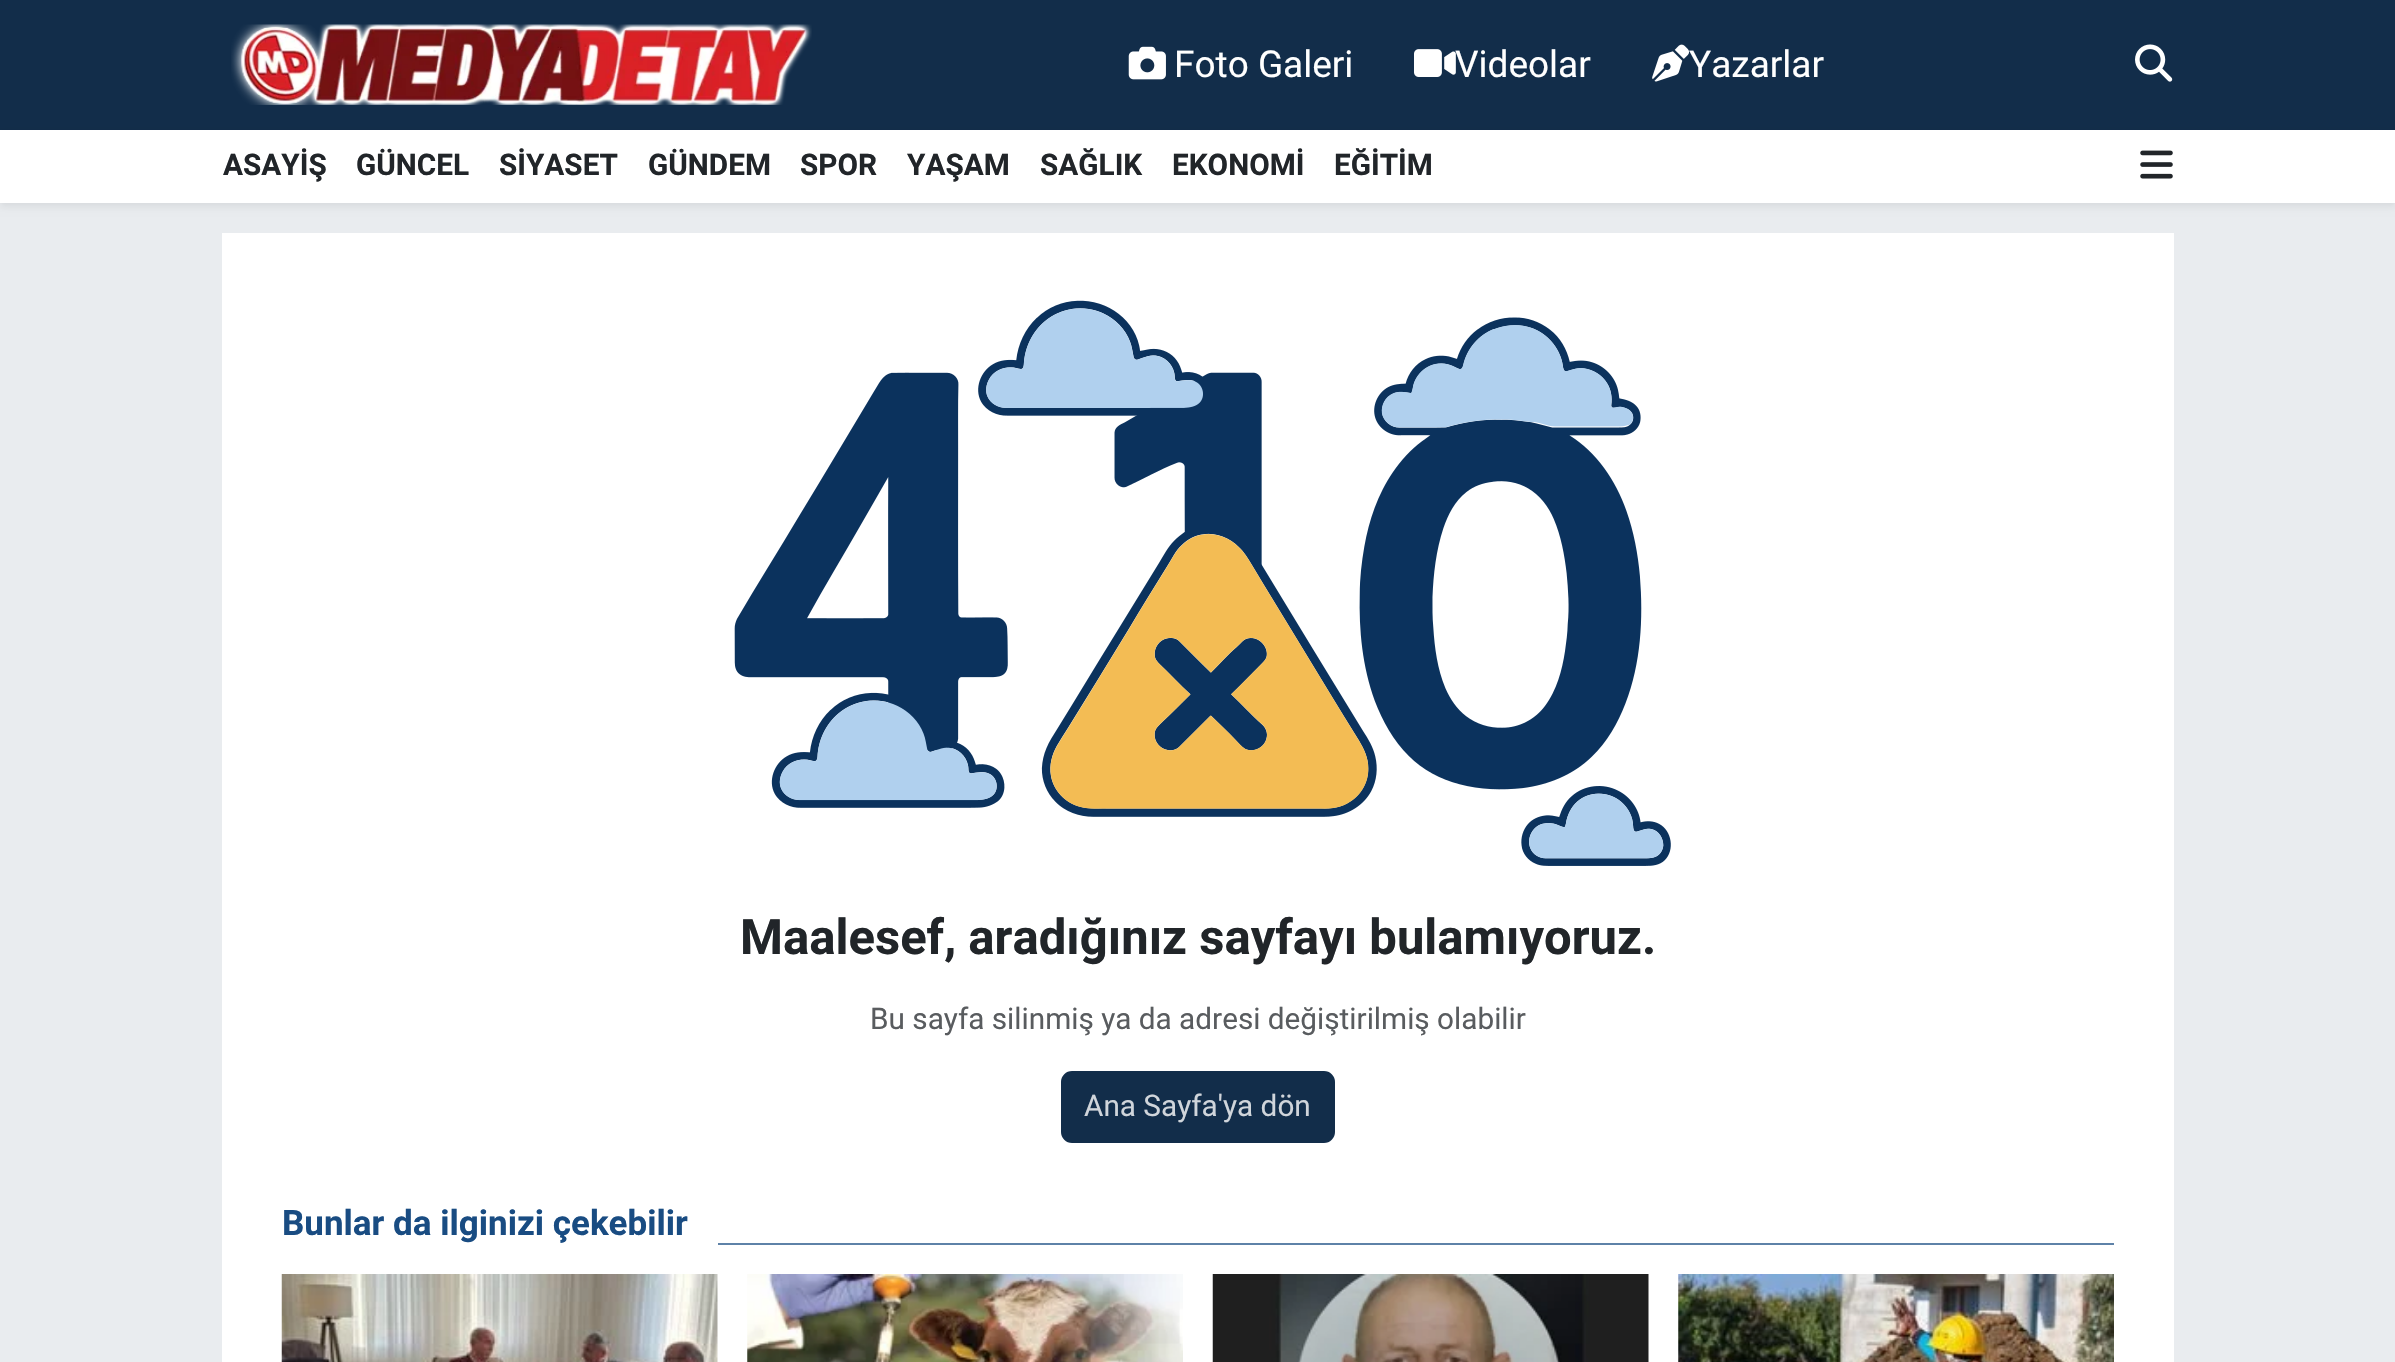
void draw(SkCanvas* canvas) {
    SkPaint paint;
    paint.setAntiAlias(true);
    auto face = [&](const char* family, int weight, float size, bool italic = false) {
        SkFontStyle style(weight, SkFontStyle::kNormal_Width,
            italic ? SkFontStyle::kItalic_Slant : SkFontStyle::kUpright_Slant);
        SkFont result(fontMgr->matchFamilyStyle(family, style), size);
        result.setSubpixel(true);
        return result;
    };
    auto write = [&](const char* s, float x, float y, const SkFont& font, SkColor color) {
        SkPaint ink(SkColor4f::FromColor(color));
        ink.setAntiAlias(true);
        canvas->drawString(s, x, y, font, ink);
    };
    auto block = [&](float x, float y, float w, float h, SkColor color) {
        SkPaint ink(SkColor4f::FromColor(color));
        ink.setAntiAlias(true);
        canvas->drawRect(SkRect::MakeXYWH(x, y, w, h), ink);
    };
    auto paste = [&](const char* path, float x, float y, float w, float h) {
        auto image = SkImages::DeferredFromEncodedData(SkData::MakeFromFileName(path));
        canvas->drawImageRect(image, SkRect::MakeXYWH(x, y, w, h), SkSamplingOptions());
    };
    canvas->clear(SkColorSetRGB(233, 236, 239));
    block(0, 0, 2395, 130, SkColorSetRGB(18, 45, 74));
    paste("pic1.png", 231, 24, 581, 81);
    paste("pic2.png", 1128, 46, 38, 34);
    auto kFont1 = face("Roboto", 400, 37);
    write("Foto Galeri", 1174, 77, kFont1, SK_ColorWHITE);
    paste("pic3.png", 1414, 49, 42, 28);
    write("Videolar", 1455, 77, kFont1, SK_ColorWHITE);
    paste("pic4.png", 1652, 44, 37, 38);
    write("Yazarlar", 1689, 77, kFont1, SK_ColorWHITE);
    paste("pic5.png", 2135, 44, 38, 38);
    paint.setColor(SkColorSetARGB(18, 0, 0, 0));
    paint.setMaskFilter(SkMaskFilter::MakeBlur(kNormal_SkBlurStyle, 3.5f));
    canvas->drawRect(SkRect::MakeXYWH(0, 133, 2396, 74), paint);
    paint.setMaskFilter(nullptr);
    block(0, 130, 2395, 73, SK_ColorWHITE);
    auto kFont2 = face("Roboto", 700, 29.75f);
    write("ASAYİŞ", 223, 175, kFont2, SkColorSetRGB(33, 37, 41));
    write("GÜNCEL", 356, 175, kFont2, SkColorSetRGB(33, 37, 41));
    write("SİYASET", 499, 175, kFont2, SkColorSetRGB(33, 37, 41));
    write("GÜNDEM", 648, 175, kFont2, SkColorSetRGB(33, 37, 41));
    write("SPOR", 800, 175, kFont2, SkColorSetRGB(33, 37, 41));
    write("YAŞAM", 907, 175, kFont2, SkColorSetRGB(33, 37, 41));
    write("SAĞLIK", 1040, 175, kFont2, SkColorSetRGB(33, 37, 41));
    write("EKONOMİ", 1172, 175, kFont2, SkColorSetRGB(33, 37, 41));
    write("EĞİTİM", 1334, 175, kFont2, SkColorSetRGB(33, 37, 41));
    paste("pic6.png", 2140, 150, 33, 29);
    block(222, 233, 1952, 1129, SK_ColorWHITE);
    paste("pic7.png", 734, 300, 937, 566);
    auto kFont3 = face("Roboto", 700, 49);
    write("Maalesef, aradığınız sayfayı bulamıyoruz.", 740, 954, kFont3, SkColorSetRGB(33, 37, 41));
    auto kFont4 = face("Roboto", 400, 29.75f);
    write("Bu sayfa silinmiş ya da adresi değiştirilmiş olabilir", 870, 1029, kFont4, SkColorSetRGB(89, 92, 95));
    paint.setColor(SkColorSetRGB(18, 45, 74));
    canvas->drawRoundRect(SkRect::MakeXYWH(1062, 1072, 272, 70), 10, 10, paint);
    paint.setStyle(SkPaint::kStroke_Style);
    paint.setStrokeWidth(2);
    canvas->drawRoundRect(SkRect::MakeXYWH(1062, 1072, 272, 70), 10, 10, paint);
    write("Ana Sayfa'ya dön", 1084, 1116, kFont4, SkColorSetRGB(208, 213, 219));
    auto kFont5 = face("Roboto", 700, 35);
    write("Bunlar da ilginizi çekebilir", 282, 1235, kFont5, SkColorSetRGB(25, 76, 130));
    block(718, 1243, 1396, 2, SkColorSetRGB(94, 130, 168));
    paste("pic8.png", 281, 1274, 437, 88);
    paste("pic9.png", 747, 1274, 436, 88);
    paste("pic10.png", 1212, 1274, 437, 88);
    paste("pic11.png", 1678, 1274, 436, 88);
}
